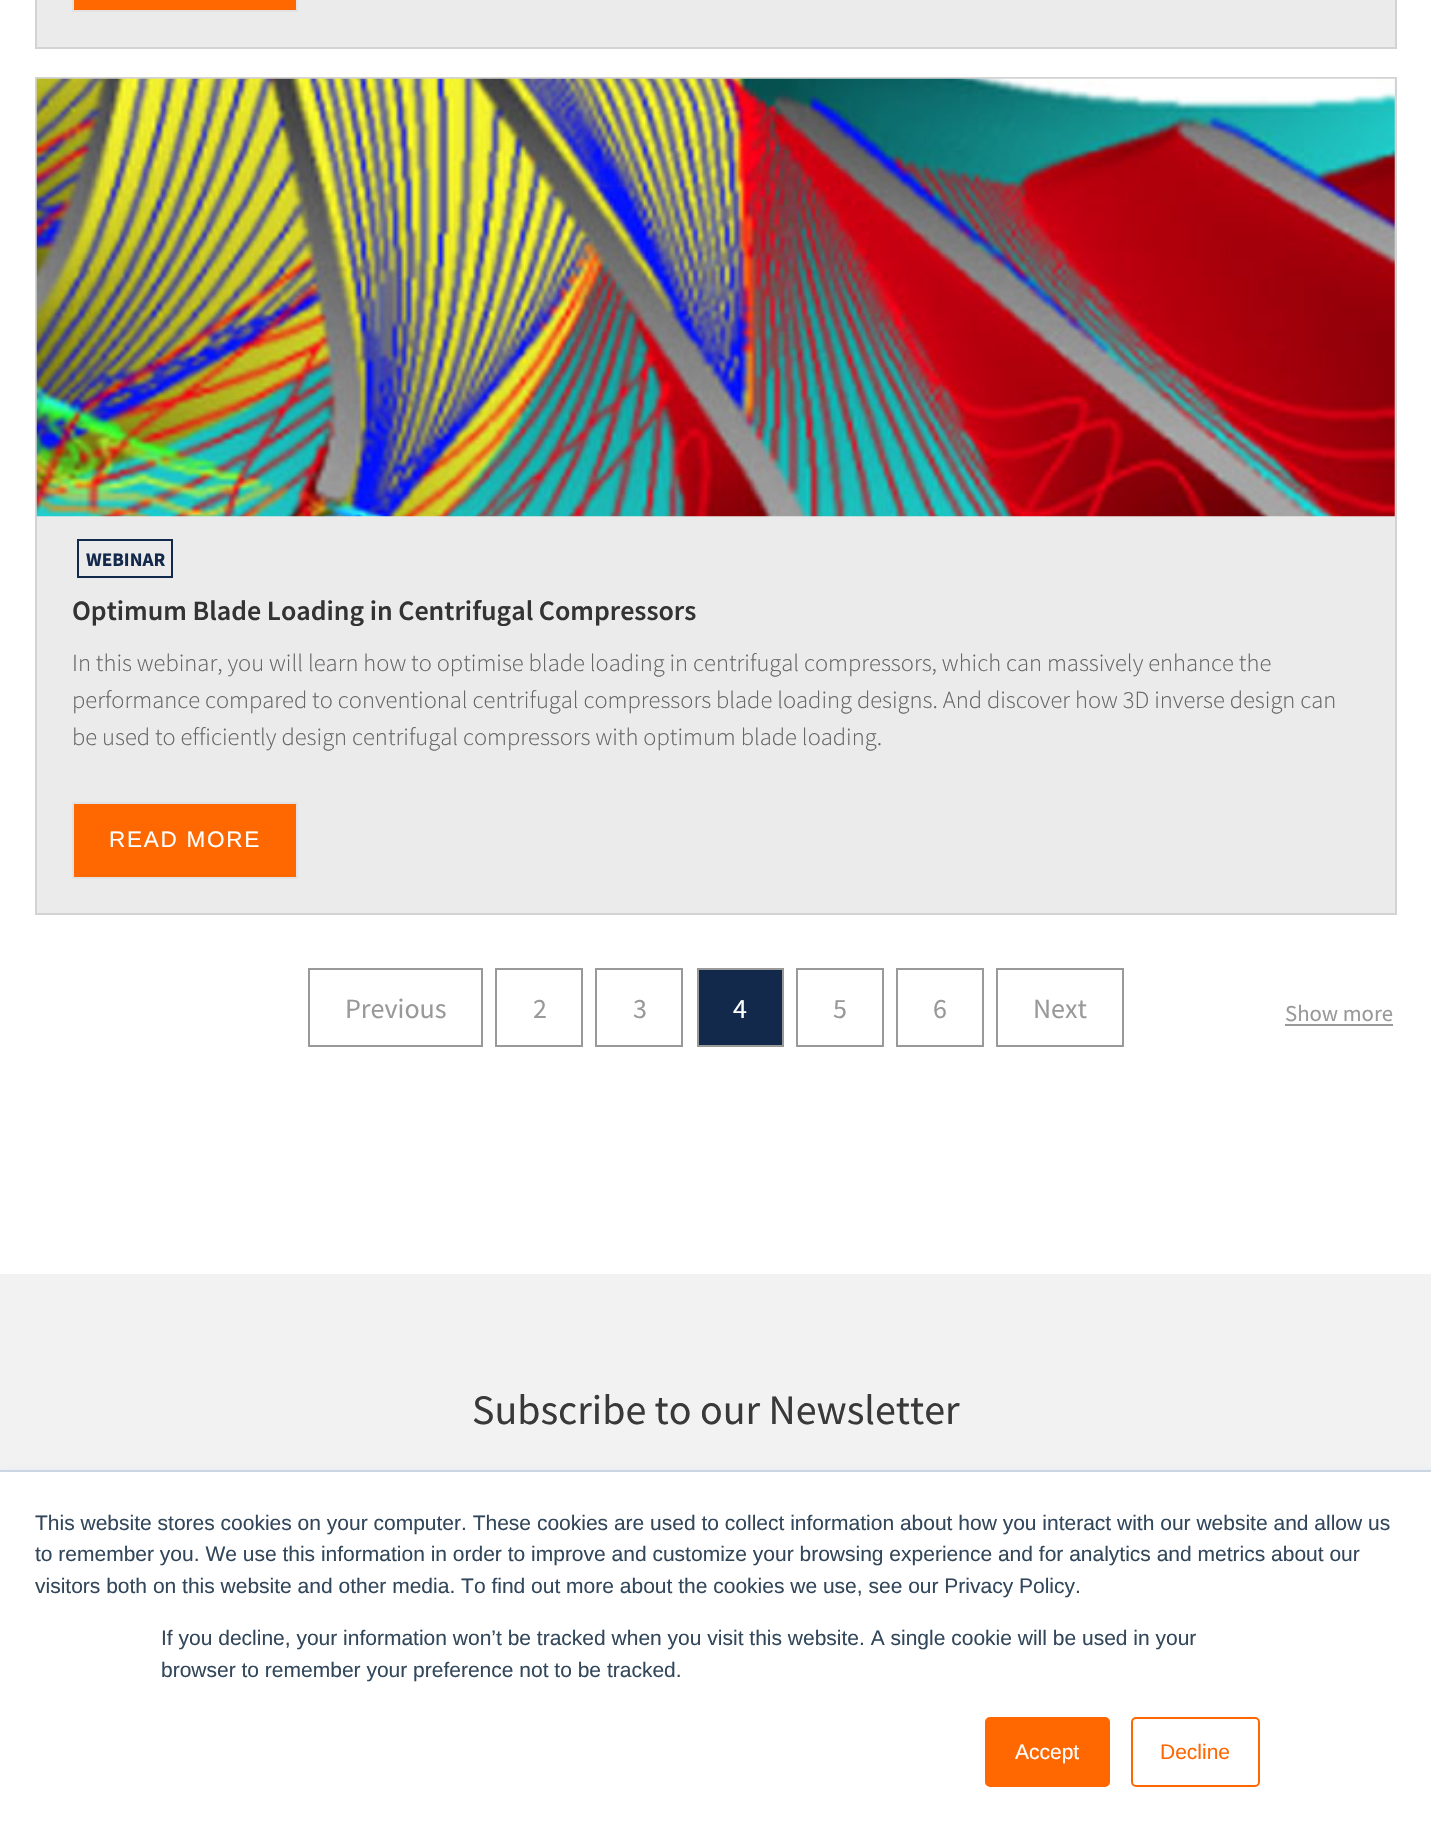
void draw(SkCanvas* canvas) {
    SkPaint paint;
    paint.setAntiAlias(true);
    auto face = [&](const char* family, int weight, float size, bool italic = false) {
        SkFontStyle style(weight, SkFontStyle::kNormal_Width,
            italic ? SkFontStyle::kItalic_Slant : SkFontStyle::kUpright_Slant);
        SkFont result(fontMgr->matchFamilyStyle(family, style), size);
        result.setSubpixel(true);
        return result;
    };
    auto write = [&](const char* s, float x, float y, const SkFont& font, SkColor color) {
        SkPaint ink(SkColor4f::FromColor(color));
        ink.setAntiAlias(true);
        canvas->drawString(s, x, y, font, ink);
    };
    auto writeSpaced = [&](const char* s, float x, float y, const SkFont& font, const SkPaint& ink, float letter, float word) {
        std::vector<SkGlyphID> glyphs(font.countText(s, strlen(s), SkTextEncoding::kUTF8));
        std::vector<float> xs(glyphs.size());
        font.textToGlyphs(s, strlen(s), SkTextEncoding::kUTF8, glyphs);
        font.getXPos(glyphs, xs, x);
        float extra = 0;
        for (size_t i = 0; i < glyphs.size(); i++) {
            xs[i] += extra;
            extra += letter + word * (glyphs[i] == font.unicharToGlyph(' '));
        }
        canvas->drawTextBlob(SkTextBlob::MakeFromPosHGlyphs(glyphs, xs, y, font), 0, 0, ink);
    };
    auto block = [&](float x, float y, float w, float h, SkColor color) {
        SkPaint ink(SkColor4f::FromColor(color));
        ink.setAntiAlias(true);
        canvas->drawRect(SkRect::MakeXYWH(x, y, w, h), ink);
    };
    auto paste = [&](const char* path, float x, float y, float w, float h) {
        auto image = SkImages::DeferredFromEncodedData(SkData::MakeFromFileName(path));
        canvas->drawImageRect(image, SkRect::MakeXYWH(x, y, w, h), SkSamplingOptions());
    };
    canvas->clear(SK_ColorWHITE);
    paint.setColor(SkColorSetRGB(235, 235, 235));
    canvas->drawRect(SkRect::MakeXYWH(36, -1, 1360, 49), paint);
    paint.setStyle(SkPaint::kStroke_Style);
    paint.setStrokeWidth(2);
    paint.setColor(SkColorSetRGB(211, 211, 211));
    canvas->drawRect(SkRect::MakeXYWH(36, -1, 1360, 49), paint);
    paint.setStyle(SkPaint::kFill_Style);
    paint.setColor(SkColorSetRGB(255, 103, 0));
    canvas->drawRect(SkRect::MakeXYWH(73, -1, 224, 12), paint);
    paint.setStyle(SkPaint::kStroke_Style);
    paint.setColor(SkColorSetRGB(226, 226, 226));
    canvas->drawRect(SkRect::MakeXYWH(73, -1, 224, 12), paint);
    paint.setStyle(SkPaint::kFill_Style);
    paint.setColor(SkColorSetRGB(235, 235, 235));
    canvas->drawRect(SkRect::MakeXYWH(36, 78, 1360, 836), paint);
    paint.setStyle(SkPaint::kStroke_Style);
    paint.setColor(SkColorSetRGB(211, 211, 211));
    canvas->drawRect(SkRect::MakeXYWH(36, 78, 1360, 836), paint);
    paste("pic1.png", 36, 78, 1359, 439);
    paint.setColor(SkColorSetRGB(18, 41, 76));
    canvas->drawRect(SkRect::MakeXYWH(78, 540, 94, 37), paint);
    auto kFont1 = face("Source Sans Pro", 700, 19.25f);
    write("WEBINAR", 86, 566, kFont1, SkColorSetRGB(18, 41, 76));
    auto kFont2 = face("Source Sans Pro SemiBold", 600, 28);
    write("Optimum Blade Loading in Centrifugal Compressors", 72, 620, kFont2, SkColorSetRGB(51, 51, 51));
    auto kFont3 = face("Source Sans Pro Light", 300, 24.5f);
    write("In this webinar, you will learn how to optimise blade loading in centrifugal compressors, which can massively enhance the", 72, 671, kFont3, SkColorSetRGB(102, 102, 102));
    write("performance compared to conventional centrifugal compressors blade loading designs. And discover how 3D inverse design can", 72, 708, kFont3, SkColorSetRGB(102, 102, 102));
    write("be used to efficiently design centrifugal compressors with optimum blade loading.", 72, 745, kFont3, SkColorSetRGB(102, 102, 102));
    paint.setStyle(SkPaint::kFill_Style);
    paint.setColor(SkColorSetRGB(255, 103, 0));
    canvas->drawRect(SkRect::MakeXYWH(73, 803, 224, 75), paint);
    paint.setStyle(SkPaint::kStroke_Style);
    paint.setColor(SkColorSetRGB(226, 226, 226));
    canvas->drawRect(SkRect::MakeXYWH(73, 803, 224, 75), paint);
    auto kFont4 = face("Liberation Sans", 400, 22.5f);
    paint.setStyle(SkPaint::kFill_Style);
    paint.setColor(SK_ColorWHITE);
    writeSpaced("READ MORE", 109, 847, kFont4, paint, 1.75f, 0);
    paint.setStyle(SkPaint::kStroke_Style);
    paint.setColor(SkColorSetRGB(153, 153, 153));
    canvas->drawRect(SkRect::MakeXYWH(309, 969, 173, 77), paint);
    auto kFont5 = face("Source Sans Pro", 400, 28);
    write("Previous", 345, 1018, kFont5, SkColorSetRGB(153, 153, 153));
    canvas->drawRect(SkRect::MakeXYWH(496, 969, 86, 77), paint);
    write("2", 533, 1018, kFont5, SkColorSetRGB(153, 153, 153));
    canvas->drawRect(SkRect::MakeXYWH(596, 969, 86, 77), paint);
    write("3", 633, 1018, kFont5, SkColorSetRGB(153, 153, 153));
    paint.setStyle(SkPaint::kFill_Style);
    paint.setColor(SkColorSetRGB(18, 41, 76));
    canvas->drawRect(SkRect::MakeXYWH(698, 969, 85, 77), paint);
    paint.setStyle(SkPaint::kStroke_Style);
    paint.setColor(SkColorSetRGB(153, 153, 153));
    canvas->drawRect(SkRect::MakeXYWH(698, 969, 85, 77), paint);
    write("4", 733, 1018, kFont5, SK_ColorWHITE);
    canvas->drawRect(SkRect::MakeXYWH(797, 969, 86, 77), paint);
    write("5", 833, 1018, kFont5, SkColorSetRGB(153, 153, 153));
    canvas->drawRect(SkRect::MakeXYWH(897, 969, 86, 77), paint);
    write("6", 933, 1018, kFont5, SkColorSetRGB(153, 153, 153));
    canvas->drawRect(SkRect::MakeXYWH(997, 969, 126, 77), paint);
    write("Next", 1033, 1018, kFont5, SkColorSetRGB(153, 153, 153));
    auto kFont6 = face("Source Sans Pro", 400, 22.75f);
    write("Show more", 1285, 1021, kFont6, SkColorSetRGB(153, 153, 153));
    block(1285, 1024, 108, 2, SkColorSetRGB(153, 153, 153));
    block(0, 1274, 1431, 196, SkColorSetRGB(242, 242, 242));
    auto kFont7 = face("Source Sans Pro", 400, 42);
    write("Subscribe to our Newsletter", 472, 1424, kFont7, SkColorSetRGB(57, 57, 57));
    paint.setStyle(SkPaint::kFill_Style);
    paint.setColor(SkColorSetRGB(234, 240, 246));
    paint.setMaskFilter(SkMaskFilter::MakeBlur(kNormal_SkBlurStyle, 2.5f));
    canvas->drawRect(SkRect::MakeXYWH(0, 1468, 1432, 363), paint);
    paint.setMaskFilter(nullptr);
    block(0, 1472, 1431, 359, SK_ColorWHITE);
    block(0, 1470, 1431, 2, SkColorSetRGB(203, 214, 226));
    auto kFont8 = face("Liberation Sans", 400, 21);
    write("This website stores cookies on your computer. These cookies are used to collect information about how you interact with our website and allow us", 35, 1530, kFont8, SkColorSetRGB(51, 71, 91));
    write("to remember you. We use this information in order to improve and customize your browsing experience and for analytics and metrics about our", 35, 1561, kFont8, SkColorSetRGB(51, 71, 91));
    write("visitors both on this website and other media. To find out more about the cookies we use, see our Privacy Policy.", 35, 1593, kFont8, SkColorSetRGB(51, 71, 91));
    write("If you decline, your information won’t be tracked when you visit this website. A single cookie will be used in your", 161, 1645, kFont8, SkColorSetRGB(51, 71, 91));
    write("browser to remember your preference not to be tracked.", 161, 1677, kFont8, SkColorSetRGB(51, 71, 91));
    paint.setColor(SkColorSetRGB(255, 103, 0));
    canvas->drawRoundRect(SkRect::MakeXYWH(986, 1718, 123, 68), 4, 4, paint);
    paint.setStyle(SkPaint::kStroke_Style);
    canvas->drawRoundRect(SkRect::MakeXYWH(986, 1718, 123, 68), 4, 4, paint);
    write("Accept", 1015, 1759, kFont8, SK_ColorWHITE);
    canvas->drawRoundRect(SkRect::MakeXYWH(1132, 1718, 127, 68), 4, 4, paint);
    write("Decline", 1160, 1759, kFont8, SkColorSetRGB(255, 103, 0));
}
